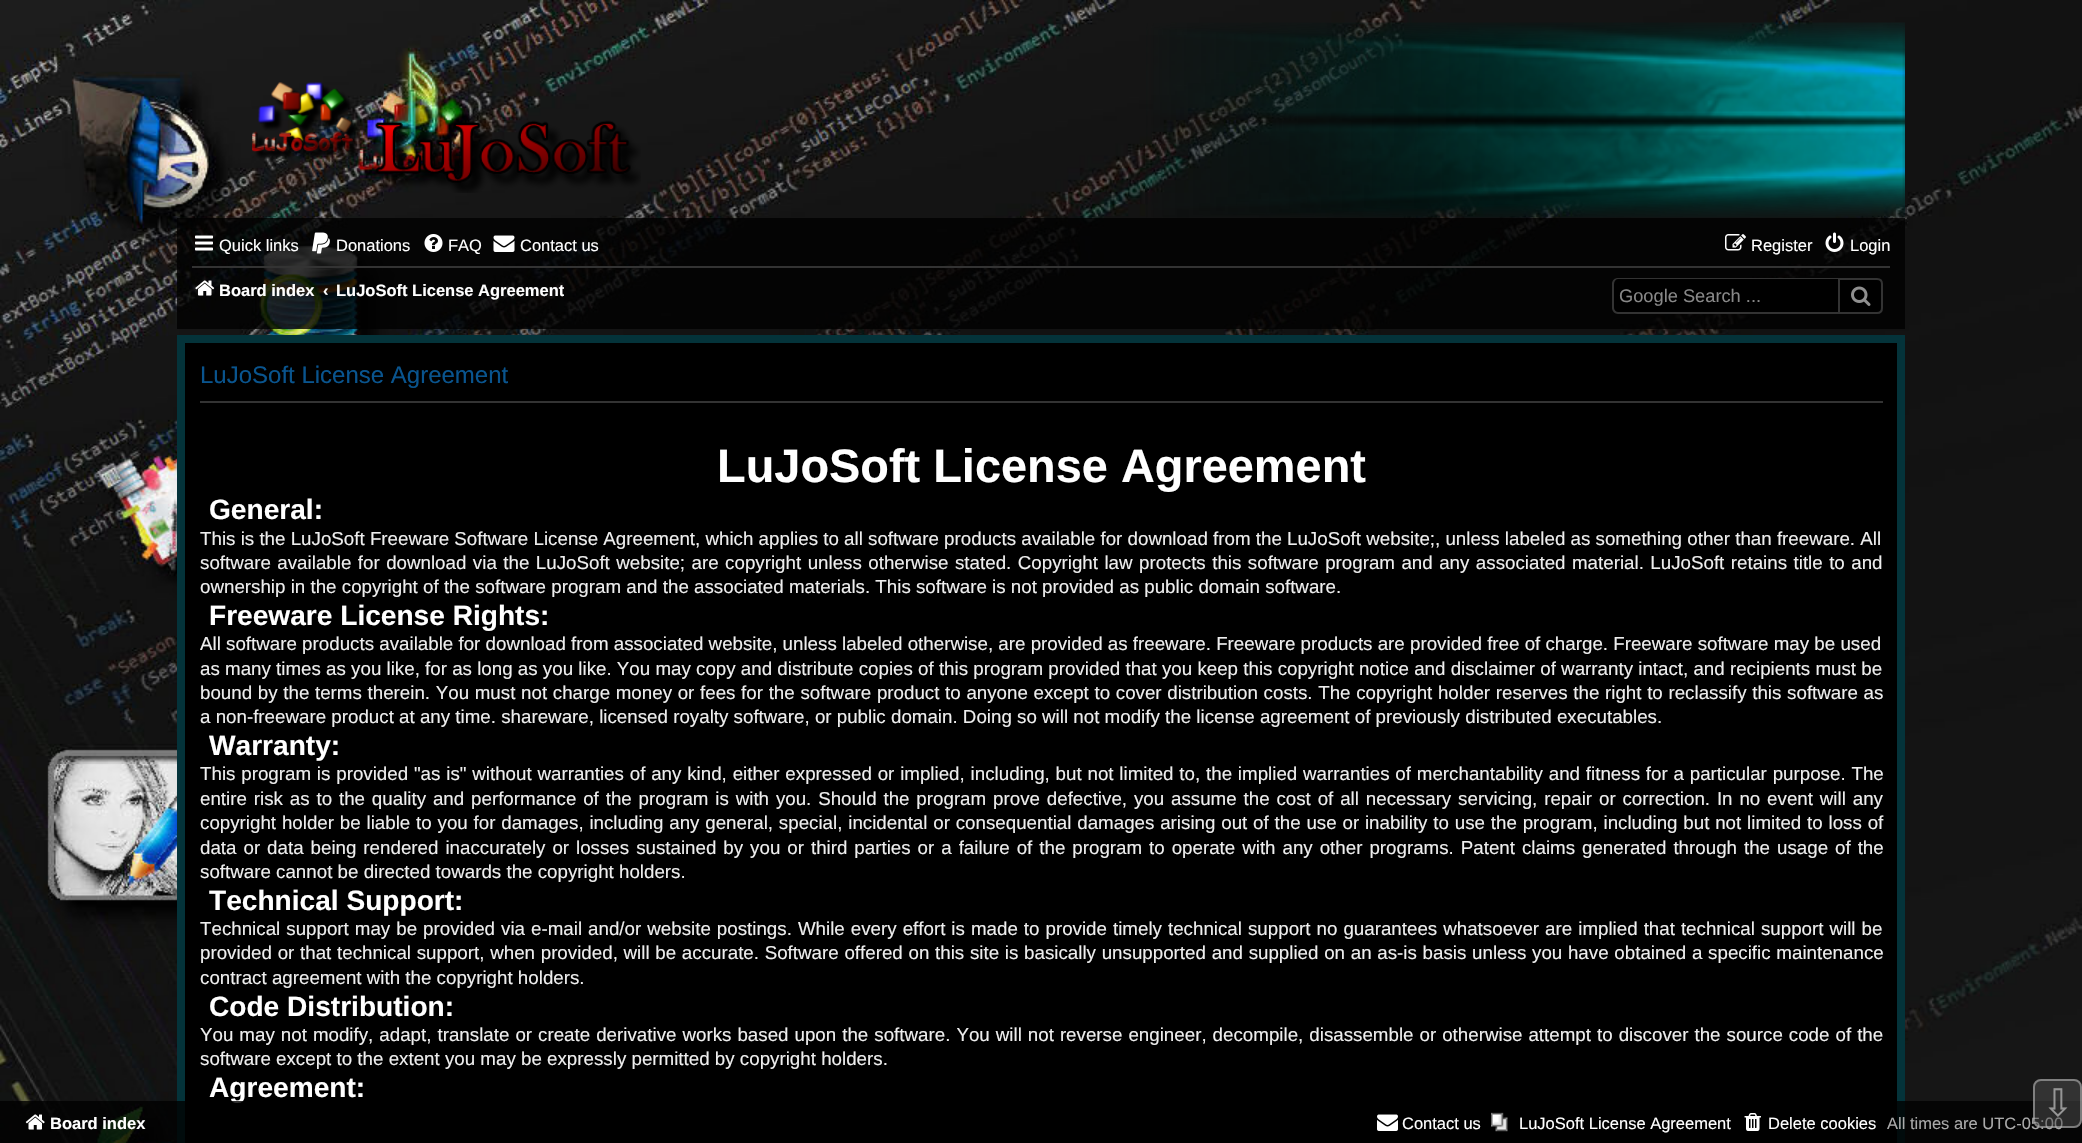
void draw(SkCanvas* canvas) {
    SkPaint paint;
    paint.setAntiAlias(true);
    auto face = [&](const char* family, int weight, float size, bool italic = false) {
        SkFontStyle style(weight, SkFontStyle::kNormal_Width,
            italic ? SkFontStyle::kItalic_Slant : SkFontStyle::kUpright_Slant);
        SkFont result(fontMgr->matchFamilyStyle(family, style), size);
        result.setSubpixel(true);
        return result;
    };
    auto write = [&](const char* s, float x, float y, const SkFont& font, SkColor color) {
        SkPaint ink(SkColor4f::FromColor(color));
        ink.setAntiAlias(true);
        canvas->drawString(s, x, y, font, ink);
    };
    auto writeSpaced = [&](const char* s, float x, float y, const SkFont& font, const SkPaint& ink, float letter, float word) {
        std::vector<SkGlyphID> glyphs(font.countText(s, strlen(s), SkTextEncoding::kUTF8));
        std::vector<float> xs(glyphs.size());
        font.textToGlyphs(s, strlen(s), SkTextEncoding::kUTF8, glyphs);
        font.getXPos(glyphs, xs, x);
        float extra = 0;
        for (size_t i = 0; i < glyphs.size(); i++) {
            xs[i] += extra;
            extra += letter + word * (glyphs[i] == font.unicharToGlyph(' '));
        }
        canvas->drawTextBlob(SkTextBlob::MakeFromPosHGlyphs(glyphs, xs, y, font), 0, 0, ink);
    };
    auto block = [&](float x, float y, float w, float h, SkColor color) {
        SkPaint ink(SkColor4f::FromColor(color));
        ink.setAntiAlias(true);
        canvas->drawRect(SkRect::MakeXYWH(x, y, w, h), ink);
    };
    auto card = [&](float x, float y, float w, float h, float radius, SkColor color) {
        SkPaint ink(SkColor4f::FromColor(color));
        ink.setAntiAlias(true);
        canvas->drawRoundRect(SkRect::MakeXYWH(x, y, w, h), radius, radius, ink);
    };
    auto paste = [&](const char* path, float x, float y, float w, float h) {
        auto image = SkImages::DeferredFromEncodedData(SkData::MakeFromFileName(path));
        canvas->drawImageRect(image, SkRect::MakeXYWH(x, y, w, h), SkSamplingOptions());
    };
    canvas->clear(SK_ColorWHITE);
    paste("pic1.png", 0, 0, 2082, 1143);
    paste("pic2.png", 1146, 22, 759, 196);
    paste("pic3.png", 252, 82, 389, 111);
    block(177, 218, 1728, 111, SkColorSetARGB(204, 0, 0, 0));
    paste("pic4.png", 195, 235, 18, 16);
    auto kFont1 = face("Liberation Sans", 400, 16.5f);
    write("Quick links", 219, 251, kFont1, SK_ColorWHITE);
    paste("pic5.png", 312, 232, 18, 22);
    write("Donations", 336, 251, kFont1, SK_ColorWHITE);
    paste("pic6.png", 424, 234, 19, 18);
    write("FAQ", 448, 251, kFont1, SK_ColorWHITE);
    paste("pic7.png", 493, 235, 22, 17);
    write("Contact us", 520, 251, kFont1, SK_ColorWHITE);
    paste("pic8.png", 1725, 234, 21, 17);
    write("Register", 1751, 251, kFont1, SK_ColorWHITE);
    paste("pic9.png", 1825, 232, 19, 20);
    write("Login", 1850, 251, kFont1, SK_ColorWHITE);
    block(192, 266, 1698, 2, SkColorSetRGB(51, 51, 51));
    paste("pic10.png", 195, 280, 20, 16);
    auto kFont2 = face("Liberation Sans", 700, 16.5f);
    write("Board index", 219, 296, kFont2, SK_ColorWHITE);
    write("‹", 323, 296, kFont2, SK_ColorWHITE);
    canvas->save();
    canvas->clipRect(SkRect::MakeXYWH(336, 272, 228, 36));
    write("LuJoSoft License Agreement", 336, 296, kFont2, SK_ColorWHITE);
    canvas->restore();
    paint.setColor(SK_ColorBLACK);
    canvas->drawPath(SkPathBuilder().moveTo(1619, 279).lineTo(1838, 279).lineTo(1838, 312).lineTo(1619, 312).cubicTo(1616, 312, 1614, 310, 1614, 307).lineTo(1614, 284).cubicTo(1614, 281, 1616, 279, 1619, 279).close().detach(), paint);
    paint.setColor(SkColorSetRGB(51, 51, 51));
    canvas->drawPath(SkPathBuilder(SkPathFillType::kEvenOdd).moveTo(1618, 278).lineTo(1838, 278).lineTo(1838, 314).lineTo(1618, 314).cubicTo(1615, 314, 1612, 311, 1612, 308).lineTo(1612, 284).cubicTo(1612, 280, 1615, 278, 1618, 278).close().moveTo(1618, 279).lineTo(1838, 279).lineTo(1838, 312).lineTo(1618, 312).cubicTo(1616, 312, 1614, 310, 1614, 308).lineTo(1614, 284).cubicTo(1614, 281, 1616, 279, 1618, 279).close().detach(), paint);
    auto kFont3 = face("Liberation Sans", 400, 18.25f);
    write("Google Search ...", 1619, 302, kFont3, SkColorSetRGB(136, 136, 136));
    paint.setColor(SK_ColorBLACK);
    canvas->drawPath(SkPathBuilder().moveTo(1839, 279).lineTo(1877, 279).cubicTo(1880, 279, 1882, 281, 1882, 284).lineTo(1882, 308).cubicTo(1882, 311, 1880, 313, 1877, 313).lineTo(1839, 313).close().detach(), paint);
    paint.setStyle(SkPaint::kStroke_Style);
    paint.setStrokeWidth(2);
    paint.setColor(SkColorSetRGB(51, 51, 51));
    canvas->drawPath(SkPathBuilder().moveTo(1839, 279).lineTo(1877, 279).cubicTo(1880, 279, 1882, 281, 1882, 284).lineTo(1882, 308).cubicTo(1882, 311, 1880, 313, 1877, 313).lineTo(1839, 313).close().detach(), paint);
    paste("pic11.png", 1851, 286, 20, 20);
    paint.setStyle(SkPaint::kFill_Style);
    paint.setColor(SK_ColorBLACK);
    canvas->drawRect(SkRect::MakeXYWH(181, 339, 1720, 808), paint);
    paint.setStyle(SkPaint::kStroke_Style);
    paint.setStrokeWidth(8);
    paint.setColor(SkColorSetRGB(4, 51, 58));
    canvas->drawRect(SkRect::MakeXYWH(181, 339, 1720, 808), paint);
    block(200, 401, 1683, 2, SkColorSetRGB(51, 51, 51));
    auto kFont4 = face("Liberation Sans", 400, 24);
    write("LuJoSoft License Agreement", 200, 383, kFont4, SkColorSetRGB(9, 84, 142));
    auto kFont5 = face("Liberation Sans", 700, 46.9f);
    write("LuJoSoft License Agreement", 717, 482, kFont5, SK_ColorWHITE);
    auto kFont6 = face("Liberation Sans", 700, 28.1f);
    write("General:", 209, 519, kFont6, SK_ColorWHITE);
    auto kFont7 = face("Liberation Sans", 400, 18.75f);
    write("This is the LuJoSoft Freeware Software License Agreement, which applies to all software products available for download from the LuJoSoft website;, unless labeled as something other than freeware. All", 200, 545, kFont7, SkColorSetRGB(238, 238, 238));
    paint.setStyle(SkPaint::kFill_Style);
    paint.setColor(SkColorSetRGB(238, 238, 238));
    writeSpaced("software available for download via the LuJoSoft website; are copyright unless otherwise stated. Copyright law protects this software program and any associated material. LuJoSoft retains title to and", 200, 569, kFont7, paint, 0, 1.25f);
    write("ownership in the copyright of the software program and the associated materials. This software is not provided as public domain software.", 200, 593, kFont7, SkColorSetRGB(238, 238, 238));
    write("Freeware License Rights:", 209, 625, kFont6, SK_ColorWHITE);
    write("All software products available for download from associated website, unless labeled otherwise, are provided as freeware. Freeware products are provided free of charge. Freeware software may be used", 200, 650, kFont7, SkColorSetRGB(238, 238, 238));
    write("as many times as you like, for as long as you like. You may copy and distribute copies of this program provided that you keep this copyright notice and disclaimer of warranty intact, and recipients must be", 200, 675, kFont7, SkColorSetRGB(238, 238, 238));
    writeSpaced("bound by the terms therein. You must not charge money or fees for the software product to anyone except to cover distribution costs. The copyright holder reserves the right to reclassify this software as", 200, 699, kFont7, paint, 0, 0.45f);
    write("a non-freeware product at any time. shareware, licensed royalty software, or public domain. Doing so will not modify the license agreement of previously distributed executables.", 200, 723, kFont7, SkColorSetRGB(238, 238, 238));
    write("Warranty:", 209, 755, kFont6, SK_ColorWHITE);
    writeSpaced("This program is provided \"as is\" without warranties of any kind, either expressed or implied, including, but not limited to, the implied warranties of merchantability and fitness for a particular purpose. The", 200, 780, kFont7, paint, 0, 0.6f);
    writeSpaced("entire risk as to the quality and performance of the program is with you. Should the program prove defective, you assume the cost of all necessary servicing, repair or correction. In no event will any", 200, 805, kFont7, paint, 0, 1.65f);
    writeSpaced("copyright holder be liable to you for damages, including any general, special, incidental or consequential damages arising out of the use or inability to use the program, including but not limited to loss of", 200, 829, kFont7, paint, 0, 0.6f);
    writeSpaced("data or data being rendered inaccurately or losses sustained by you or third parties or a failure of the program to operate with any other programs. Patent claims generated through the usage of the", 200, 854, kFont7, paint, 0, 1.75f);
    write("software cannot be directed towards the copyright holders.", 200, 878, kFont7, SkColorSetRGB(238, 238, 238));
    write("Technical Support:", 209, 910, kFont6, SK_ColorWHITE);
    writeSpaced("Technical support may be provided via e-mail and/or website postings. While every effort is made to provide timely technical support no guarantees whatsoever are implied that technical support will be", 200, 935, kFont7, paint, 0, 0.8f);
    writeSpaced("provided or that technical support, when provided, will be accurate. Software offered on this site is basically unsupported and supplied on an as-is basis unless you have obtained a specific maintenance", 200, 959, kFont7, paint, 0, 0.5f);
    write("contract agreement with the copyright holders.", 200, 984, kFont7, SkColorSetRGB(238, 238, 238));
    write("Code Distribution:", 209, 1016, kFont6, SK_ColorWHITE);
    writeSpaced("You may not modify, adapt, translate or create derivative works based upon the software. You will not reverse engineer, decompile, disassemble or otherwise attempt to discover the source code of the", 200, 1041, kFont7, paint, 0, 0.8f);
    write("software except to the extent you may be expressly permitted by copyright holders.", 200, 1065, kFont7, SkColorSetRGB(238, 238, 238));
    write("Agreement:", 209, 1097, kFont6, SK_ColorWHITE);
    block(0, 1101, 2082, 42, SkColorSetARGB(204, 0, 0, 0));
    paste("pic12.png", 25, 1114, 20, 16);
    write("Board index", 50, 1129, kFont2, SK_ColorWHITE);
    paste("pic13.png", 1377, 1114, 21, 17);
    write("Contact us", 1402, 1129, kFont1, SK_ColorWHITE);
    paste("pic14.png", 1491, 1112, 17, 20);
    write("LuJoSoft License Agreement", 1519, 1129, kFont1, SK_ColorWHITE);
    paste("pic15.png", 1744, 1113, 17, 18);
    write("Delete cookies", 1768, 1129, kFont1, SK_ColorWHITE);
    write("All times are UTC-05:00", 1887, 1129, kFont1, SkColorSetRGB(170, 170, 170));
    card(2033, 1079, 49, 49, 8, SkColorSetARGB(128, 79, 79, 79));
    paint.setStyle(SkPaint::kStroke_Style);
    paint.setStrokeWidth(2);
    paint.setColor(SkColorSetARGB(128, 204, 204, 204));
    canvas->drawRoundRect(SkRect::MakeXYWH(2034, 1080, 47, 47), 7, 7, paint);
    auto kFont8 = face("DejaVu Sans", 400, 38);
    write("⇩", 2042, 1116, kFont8, SkColorSetRGB(150, 150, 150));
}
